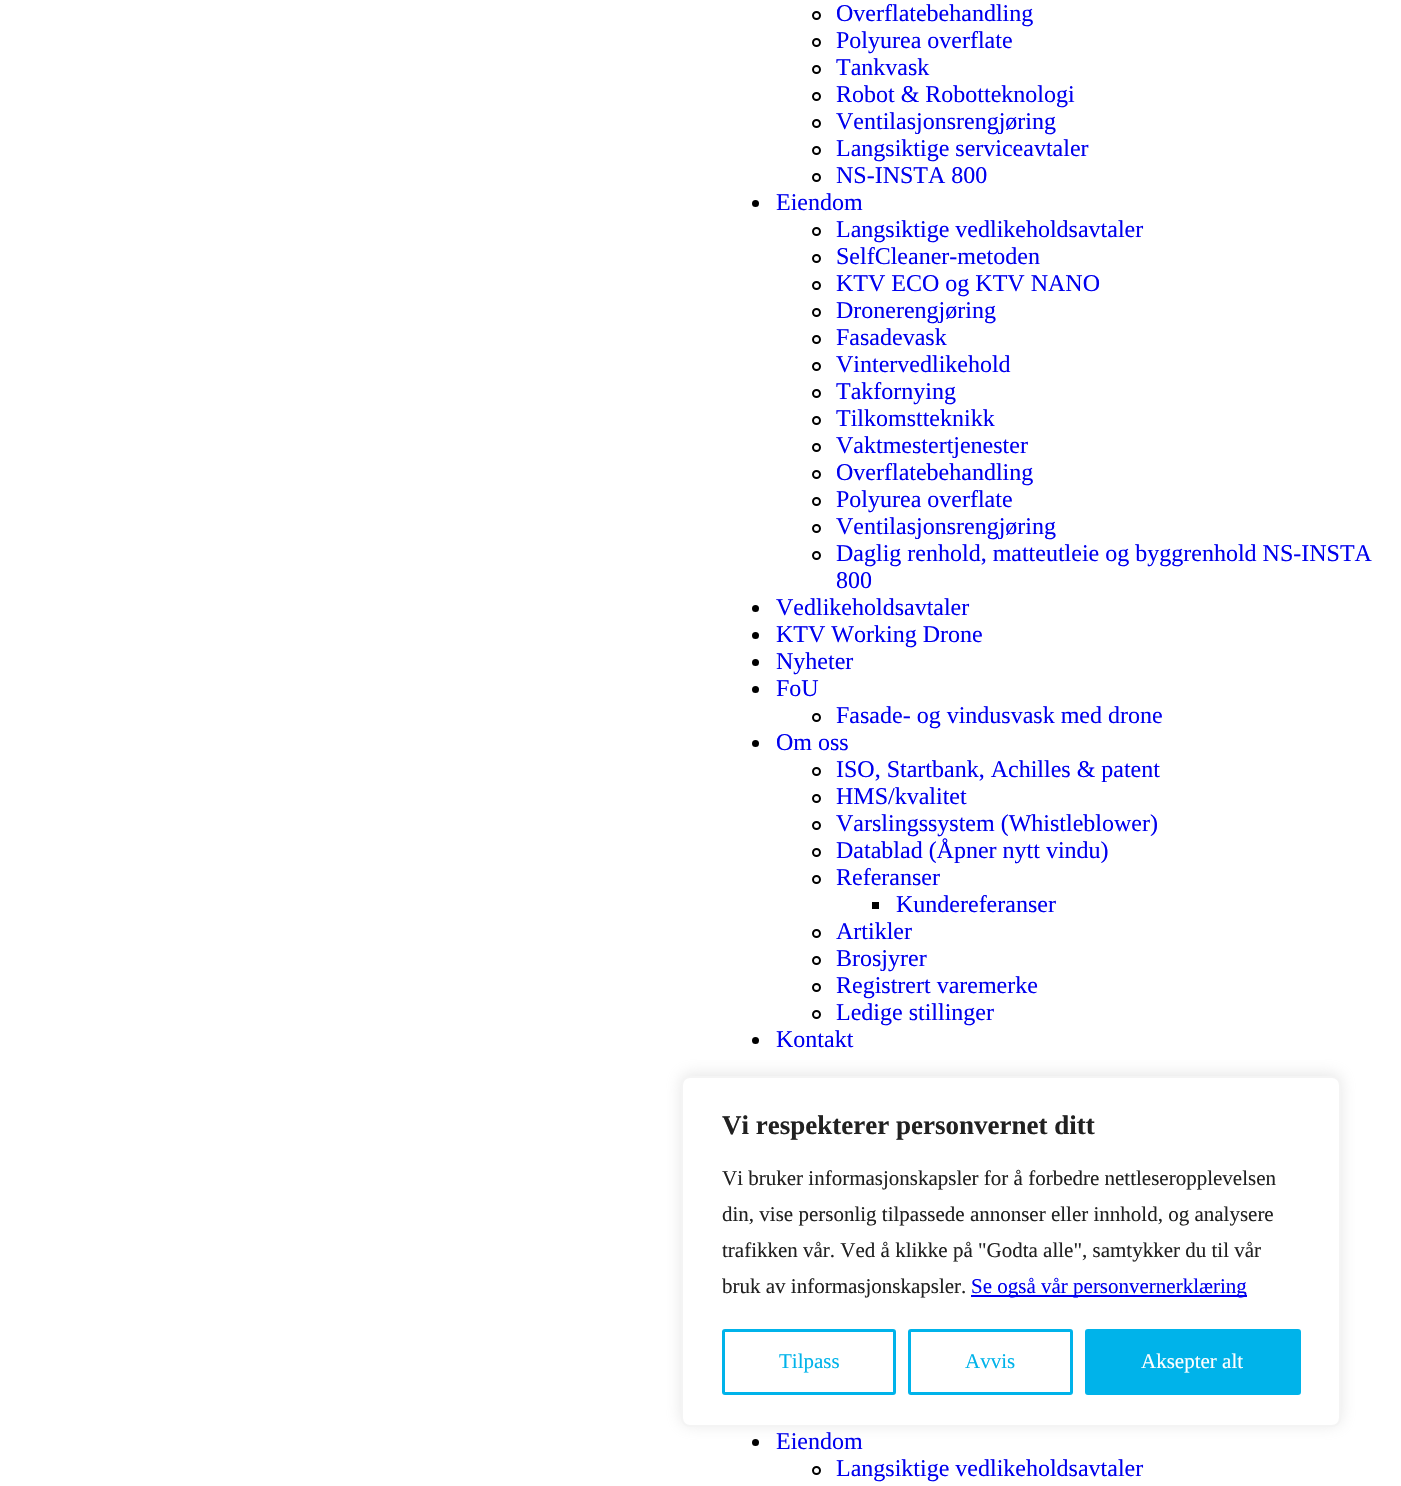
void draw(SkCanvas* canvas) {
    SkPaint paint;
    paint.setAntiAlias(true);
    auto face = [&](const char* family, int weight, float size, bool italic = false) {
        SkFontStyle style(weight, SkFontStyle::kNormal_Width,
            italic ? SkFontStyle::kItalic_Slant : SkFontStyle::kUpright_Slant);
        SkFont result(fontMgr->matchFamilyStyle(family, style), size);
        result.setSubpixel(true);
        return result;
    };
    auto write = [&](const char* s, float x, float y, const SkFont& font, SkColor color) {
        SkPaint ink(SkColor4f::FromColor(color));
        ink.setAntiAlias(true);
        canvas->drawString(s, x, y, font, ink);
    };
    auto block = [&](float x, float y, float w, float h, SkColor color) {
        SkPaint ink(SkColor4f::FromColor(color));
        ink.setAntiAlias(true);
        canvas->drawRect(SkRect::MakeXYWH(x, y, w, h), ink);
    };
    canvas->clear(SK_ColorWHITE);
    paint.setStyle(SkPaint::kStroke_Style);
    paint.setStrokeWidth(2);
    paint.setColor(SK_ColorBLACK);
    canvas->drawCircle(816.5f, 15.5f, 3.5f, paint);
    auto kFont1 = face("Liberation Serif", 400, 24);
    write("Overflatebehandling", 836, 21, kFont1, SkColorSetRGB(0, 0, 238));
    canvas->drawCircle(816.5f, 42.5f, 3.5f, paint);
    write("Polyurea overflate", 836, 48, kFont1, SkColorSetRGB(0, 0, 238));
    canvas->drawCircle(816.5f, 69.5f, 3.5f, paint);
    write("Tankvask", 836, 75, kFont1, SkColorSetRGB(0, 0, 238));
    canvas->drawCircle(816.5f, 96.5f, 3.5f, paint);
    write("Robot & Robotteknologi", 836, 102, kFont1, SkColorSetRGB(0, 0, 238));
    canvas->drawCircle(816.5f, 123.5f, 3.5f, paint);
    write("Ventilasjonsrengjøring", 836, 129, kFont1, SkColorSetRGB(0, 0, 238));
    canvas->drawCircle(816.5f, 150.5f, 3.5f, paint);
    write("Langsiktige serviceavtaler", 836, 156, kFont1, SkColorSetRGB(0, 0, 238));
    canvas->drawCircle(816.5f, 177.5f, 3.5f, paint);
    write("NS-INSTA 800", 836, 183, kFont1, SkColorSetRGB(0, 0, 238));
    paint.setStyle(SkPaint::kFill_Style);
    canvas->drawCircle(755.5f, 203.5f, 3.5f, paint);
    write("Eiendom", 776, 210, kFont1, SkColorSetRGB(0, 0, 238));
    paint.setStyle(SkPaint::kStroke_Style);
    canvas->drawCircle(816.5f, 231.5f, 3.5f, paint);
    write("Langsiktige vedlikeholdsavtaler", 836, 237, kFont1, SkColorSetRGB(0, 0, 238));
    canvas->drawCircle(816.5f, 258.5f, 3.5f, paint);
    write("SelfCleaner-metoden", 836, 264, kFont1, SkColorSetRGB(0, 0, 238));
    canvas->drawCircle(816.5f, 285.5f, 3.5f, paint);
    write("KTV ECO og KTV NANO", 836, 291, kFont1, SkColorSetRGB(0, 0, 238));
    canvas->drawCircle(816.5f, 312.5f, 3.5f, paint);
    write("Dronerengjøring", 836, 318, kFont1, SkColorSetRGB(0, 0, 238));
    canvas->drawCircle(816.5f, 339.5f, 3.5f, paint);
    write("Fasadevask", 836, 345, kFont1, SkColorSetRGB(0, 0, 238));
    canvas->drawCircle(816.5f, 366.5f, 3.5f, paint);
    write("Vintervedlikehold", 836, 372, kFont1, SkColorSetRGB(0, 0, 238));
    canvas->drawCircle(816.5f, 393.5f, 3.5f, paint);
    write("Takfornying", 836, 399, kFont1, SkColorSetRGB(0, 0, 238));
    canvas->drawCircle(816.5f, 420.5f, 3.5f, paint);
    write("Tilkomstteknikk", 836, 426, kFont1, SkColorSetRGB(0, 0, 238));
    canvas->drawCircle(816.5f, 447.5f, 3.5f, paint);
    write("Vaktmestertjenester", 836, 453, kFont1, SkColorSetRGB(0, 0, 238));
    canvas->drawCircle(816.5f, 474.5f, 3.5f, paint);
    write("Overflatebehandling", 836, 480, kFont1, SkColorSetRGB(0, 0, 238));
    canvas->drawCircle(816.5f, 501.5f, 3.5f, paint);
    write("Polyurea overflate", 836, 507, kFont1, SkColorSetRGB(0, 0, 238));
    canvas->drawCircle(816.5f, 528.5f, 3.5f, paint);
    write("Ventilasjonsrengjøring", 836, 534, kFont1, SkColorSetRGB(0, 0, 238));
    canvas->drawCircle(816.5f, 555.5f, 3.5f, paint);
    write("Daglig renhold, matteutleie og byggrenhold NS-INSTA", 836, 561, kFont1, SkColorSetRGB(0, 0, 238));
    write("800", 836, 588, kFont1, SkColorSetRGB(0, 0, 238));
    paint.setStyle(SkPaint::kFill_Style);
    canvas->drawCircle(755.5f, 608.5f, 3.5f, paint);
    write("Vedlikeholdsavtaler", 776, 615, kFont1, SkColorSetRGB(0, 0, 238));
    canvas->drawCircle(755.5f, 635.5f, 3.5f, paint);
    write("KTV Working Drone", 776, 642, kFont1, SkColorSetRGB(0, 0, 238));
    canvas->drawCircle(755.5f, 662.5f, 3.5f, paint);
    write("Nyheter", 776, 669, kFont1, SkColorSetRGB(0, 0, 238));
    canvas->drawCircle(755.5f, 689.5f, 3.5f, paint);
    write("FoU", 776, 696, kFont1, SkColorSetRGB(0, 0, 238));
    paint.setStyle(SkPaint::kStroke_Style);
    canvas->drawCircle(816.5f, 717.5f, 3.5f, paint);
    write("Fasade- og vindusvask med drone", 836, 723, kFont1, SkColorSetRGB(0, 0, 238));
    paint.setStyle(SkPaint::kFill_Style);
    canvas->drawCircle(755.5f, 743.5f, 3.5f, paint);
    write("Om oss", 776, 750, kFont1, SkColorSetRGB(0, 0, 238));
    paint.setStyle(SkPaint::kStroke_Style);
    canvas->drawCircle(816.5f, 771.5f, 3.5f, paint);
    write("ISO, Startbank, Achilles & patent", 836, 777, kFont1, SkColorSetRGB(0, 0, 238));
    canvas->drawCircle(816.5f, 798.5f, 3.5f, paint);
    write("HMS/kvalitet", 836, 804, kFont1, SkColorSetRGB(0, 0, 238));
    canvas->drawCircle(816.5f, 825.5f, 3.5f, paint);
    write("Varslingssystem (Whistleblower)", 836, 831, kFont1, SkColorSetRGB(0, 0, 238));
    canvas->drawCircle(816.5f, 852.5f, 3.5f, paint);
    write("Datablad (Åpner nytt vindu)", 836, 858, kFont1, SkColorSetRGB(0, 0, 238));
    canvas->drawCircle(816.5f, 879.5f, 3.5f, paint);
    write("Referanser", 836, 885, kFont1, SkColorSetRGB(0, 0, 238));
    block(872, 902, 7, 7, SK_ColorBLACK);
    write("Kundereferanser", 896, 912, kFont1, SkColorSetRGB(0, 0, 238));
    canvas->drawCircle(816.5f, 933.5f, 3.5f, paint);
    write("Artikler", 836, 939, kFont1, SkColorSetRGB(0, 0, 238));
    canvas->drawCircle(816.5f, 960.5f, 3.5f, paint);
    write("Brosjyrer", 836, 966, kFont1, SkColorSetRGB(0, 0, 238));
    canvas->drawCircle(816.5f, 987.5f, 3.5f, paint);
    write("Registrert varemerke", 836, 993, kFont1, SkColorSetRGB(0, 0, 238));
    canvas->drawCircle(816.5f, 1014.5f, 3.5f, paint);
    write("Ledige stillinger", 836, 1020, kFont1, SkColorSetRGB(0, 0, 238));
    paint.setStyle(SkPaint::kFill_Style);
    canvas->drawCircle(755.5f, 1040.5f, 3.5f, paint);
    write("Kontakt", 776, 1047, kFont1, SkColorSetRGB(0, 0, 238));
    canvas->drawCircle(755.5f, 1442.5f, 3.5f, paint);
    write("Eiendom", 776, 1449, kFont1, SkColorSetRGB(0, 0, 238));
    paint.setStyle(SkPaint::kStroke_Style);
    canvas->drawCircle(816.5f, 1470.5f, 3.5f, paint);
    write("Langsiktige vedlikeholdsavtaler", 836, 1476, kFont1, SkColorSetRGB(0, 0, 238));
    paint.setStyle(SkPaint::kFill_Style);
    paint.setColor(SkColorSetARGB(77, 172, 171, 171));
    paint.setMaskFilter(SkMaskFilter::MakeBlur(kNormal_SkBlurStyle, 7.5f));
    canvas->drawRoundRect(SkRect::MakeXYWH(681, 1074, 660, 351), 9, 9, paint);
    paint.setMaskFilter(nullptr);
    paint.setColor(SK_ColorWHITE);
    canvas->drawRoundRect(SkRect::MakeXYWH(682, 1077, 658, 349), 8, 8, paint);
    paint.setStyle(SkPaint::kStroke_Style);
    paint.setColor(SkColorSetRGB(244, 244, 244));
    canvas->drawRoundRect(SkRect::MakeXYWH(682, 1077, 658, 349), 8, 8, paint);
    auto kFont2 = face("Liberation Serif", 700, 27);
    write("Vi respekterer personvernet ditt", 722, 1134, kFont2, SkColorSetRGB(33, 33, 33));
    auto kFont3 = face("Liberation Serif", 400, 21);
    write("Vi bruker informasjonskapsler for å forbedre nettleseropplevelsen", 722, 1185, kFont3, SkColorSetRGB(33, 33, 33));
    write("din, vise personlig tilpassede annonser eller innhold, og analysere", 722, 1221, kFont3, SkColorSetRGB(33, 33, 33));
    write("trafikken vår. Ved å klikke på \"Godta alle\", samtykker du til vår", 722, 1257, kFont3, SkColorSetRGB(33, 33, 33));
    write("bruk av informasjonskapsler.", 722, 1293, kFont3, SkColorSetRGB(33, 33, 33));
    block(971, 1295, 276, 2, SkColorSetRGB(0, 0, 238));
    write("Se også vår personvernerklæring", 971, 1293, kFont3, SkColorSetRGB(0, 0, 238));
    paint.setStrokeWidth(3);
    paint.setColor(SkColorSetRGB(0, 179, 234));
    canvas->drawRoundRect(SkRect::MakeXYWH(723.5f, 1330.5f, 171, 63), 1.5f, 1.5f, paint);
    write("Tilpass", 779, 1368, kFont3, SkColorSetRGB(0, 179, 234));
    canvas->drawRoundRect(SkRect::MakeXYWH(909.5f, 1330.5f, 162, 63), 1.5f, 1.5f, paint);
    write("Avvis", 965, 1368, kFont3, SkColorSetRGB(0, 179, 234));
    paint.setStyle(SkPaint::kFill_Style);
    canvas->drawRoundRect(SkRect::MakeXYWH(1086.5f, 1330.5f, 213, 63), 1.5f, 1.5f, paint);
    paint.setStyle(SkPaint::kStroke_Style);
    canvas->drawRoundRect(SkRect::MakeXYWH(1086.5f, 1330.5f, 213, 63), 1.5f, 1.5f, paint);
    write("Aksepter alt", 1141, 1368, kFont3, SK_ColorWHITE);
}
